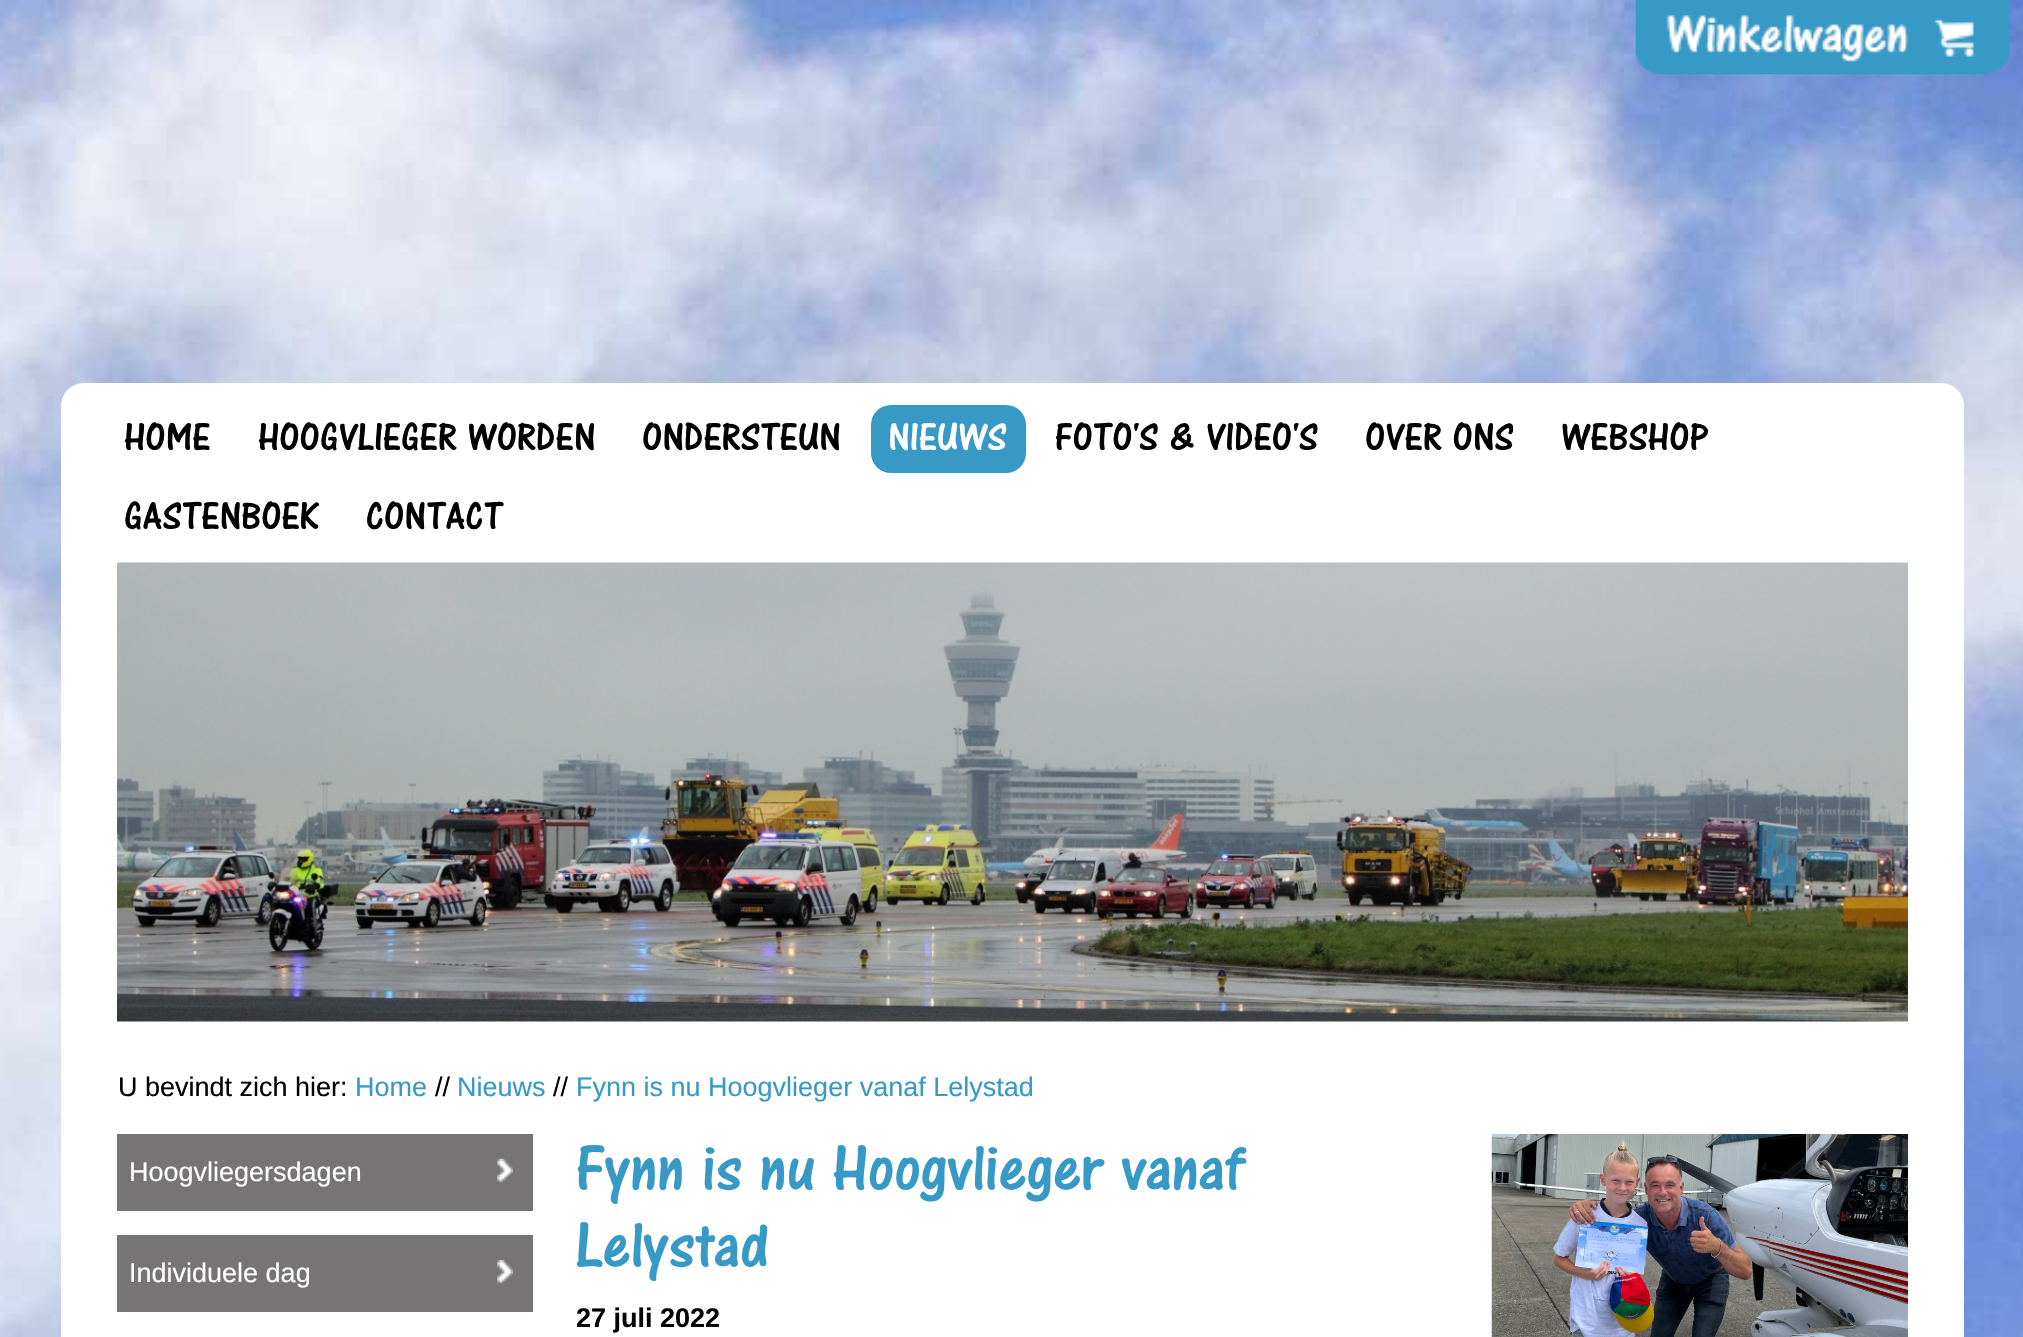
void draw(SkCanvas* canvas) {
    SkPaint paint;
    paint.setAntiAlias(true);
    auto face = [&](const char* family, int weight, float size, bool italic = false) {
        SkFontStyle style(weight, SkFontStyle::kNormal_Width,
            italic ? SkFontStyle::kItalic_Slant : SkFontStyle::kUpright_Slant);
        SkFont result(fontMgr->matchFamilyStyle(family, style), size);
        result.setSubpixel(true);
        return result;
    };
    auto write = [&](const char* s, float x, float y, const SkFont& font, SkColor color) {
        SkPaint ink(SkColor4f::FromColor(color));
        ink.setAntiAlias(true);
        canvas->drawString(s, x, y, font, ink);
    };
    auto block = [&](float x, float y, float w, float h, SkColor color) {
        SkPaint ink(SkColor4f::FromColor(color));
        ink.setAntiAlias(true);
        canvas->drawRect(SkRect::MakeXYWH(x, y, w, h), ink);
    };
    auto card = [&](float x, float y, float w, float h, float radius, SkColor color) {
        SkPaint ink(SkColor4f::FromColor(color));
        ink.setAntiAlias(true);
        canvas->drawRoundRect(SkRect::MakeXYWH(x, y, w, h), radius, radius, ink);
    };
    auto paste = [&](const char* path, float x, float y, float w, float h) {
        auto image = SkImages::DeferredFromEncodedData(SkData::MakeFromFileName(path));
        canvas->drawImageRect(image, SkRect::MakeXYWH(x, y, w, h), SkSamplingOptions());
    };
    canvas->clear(SK_ColorWHITE);
    paste("pic1.png", 0, 0, 2023, 1337);
    paste("pic2.png", 1635, 0, 375, 75);
    card(61, 383, 1903, 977, 23, SK_ColorWHITE);
    auto kFont1 = face("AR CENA", 100, 40.5f);
    write("HOME", 124, 450, kFont1, SK_ColorBLACK);
    write("HOOGVLIEGER WORDEN", 258, 450, kFont1, SK_ColorBLACK);
    write("ONDERSTEUN", 642, 450, kFont1, SK_ColorBLACK);
    card(871, 405, 155, 68, 20, SkColorSetRGB(55, 153, 198));
    write("NIEUWS", 888, 450, kFont1, SK_ColorWHITE);
    write("FOTO'S & VIDEO'S", 1055, 450, kFont1, SK_ColorBLACK);
    write("OVER ONS", 1365, 450, kFont1, SK_ColorBLACK);
    write("WEBSHOP", 1561, 450, kFont1, SK_ColorBLACK);
    write("GASTENBOEK", 124, 529, kFont1, SK_ColorBLACK);
    write("CONTACT", 366, 529, kFont1, SK_ColorBLACK);
    paste("pic3.png", 117, 562, 1791, 460);
    auto kFont2 = face("Liberation Sans", 400, 27);
    write("U bevindt zich hier:", 118, 1096, kFont2, SK_ColorBLACK);
    write("Home", 355, 1096, kFont2, SkColorSetRGB(55, 153, 198));
    write("//", 435, 1096, kFont2, SK_ColorBLACK);
    write("Nieuws", 457, 1096, kFont2, SkColorSetRGB(55, 153, 198));
    write("//", 553, 1096, kFont2, SK_ColorBLACK);
    write("Fynn is nu Hoogvlieger vanaf Lelystad", 576, 1096, kFont2, SkColorSetRGB(55, 153, 198));
    block(117, 1134, 416, 77, SkColorSetRGB(118, 116, 117));
    paste("pic4.png", 497, 1158, 16, 26);
    write("Hoogvliegersdagen", 129, 1181, kFont2, SK_ColorWHITE);
    block(117, 1235, 416, 77, SkColorSetRGB(118, 116, 117));
    paste("pic5.png", 497, 1260, 16, 25);
    write("Individuele dag", 129, 1282, kFont2, SK_ColorWHITE);
    auto kFont3 = face("AR CENA", 100, 67.5f);
    write("Fynn is nu Hoogvlieger vanaf", 576, 1190, kFont3, SkColorSetRGB(55, 153, 198));
    write("Lelystad", 576, 1267, kFont3, SkColorSetRGB(55, 153, 198));
    auto kFont4 = face("Liberation Sans", 700, 27);
    write("27 juli 2022", 576, 1327, kFont4, SK_ColorBLACK);
    paste("pic6.png", 1491, 1134, 417, 203);
}
